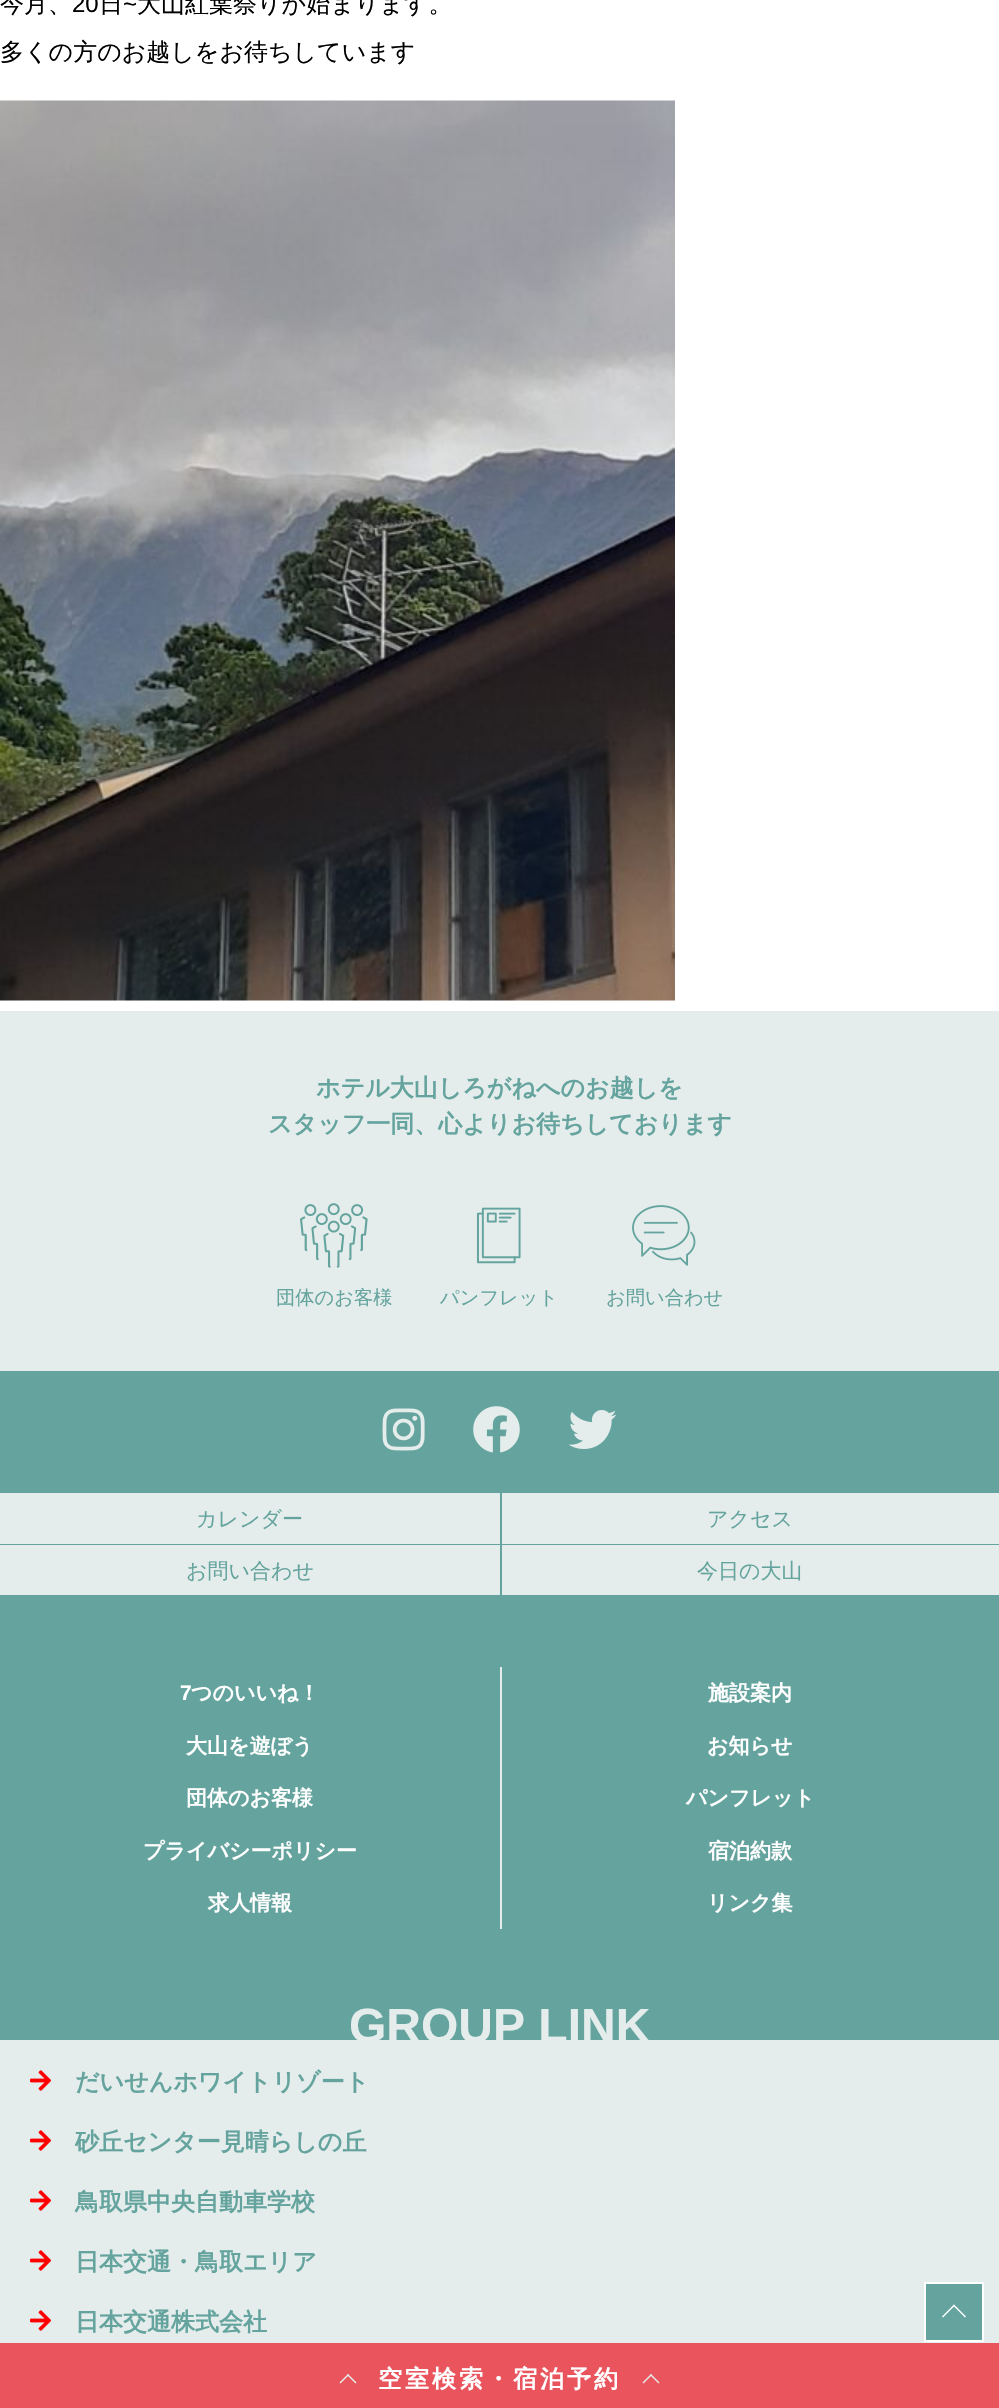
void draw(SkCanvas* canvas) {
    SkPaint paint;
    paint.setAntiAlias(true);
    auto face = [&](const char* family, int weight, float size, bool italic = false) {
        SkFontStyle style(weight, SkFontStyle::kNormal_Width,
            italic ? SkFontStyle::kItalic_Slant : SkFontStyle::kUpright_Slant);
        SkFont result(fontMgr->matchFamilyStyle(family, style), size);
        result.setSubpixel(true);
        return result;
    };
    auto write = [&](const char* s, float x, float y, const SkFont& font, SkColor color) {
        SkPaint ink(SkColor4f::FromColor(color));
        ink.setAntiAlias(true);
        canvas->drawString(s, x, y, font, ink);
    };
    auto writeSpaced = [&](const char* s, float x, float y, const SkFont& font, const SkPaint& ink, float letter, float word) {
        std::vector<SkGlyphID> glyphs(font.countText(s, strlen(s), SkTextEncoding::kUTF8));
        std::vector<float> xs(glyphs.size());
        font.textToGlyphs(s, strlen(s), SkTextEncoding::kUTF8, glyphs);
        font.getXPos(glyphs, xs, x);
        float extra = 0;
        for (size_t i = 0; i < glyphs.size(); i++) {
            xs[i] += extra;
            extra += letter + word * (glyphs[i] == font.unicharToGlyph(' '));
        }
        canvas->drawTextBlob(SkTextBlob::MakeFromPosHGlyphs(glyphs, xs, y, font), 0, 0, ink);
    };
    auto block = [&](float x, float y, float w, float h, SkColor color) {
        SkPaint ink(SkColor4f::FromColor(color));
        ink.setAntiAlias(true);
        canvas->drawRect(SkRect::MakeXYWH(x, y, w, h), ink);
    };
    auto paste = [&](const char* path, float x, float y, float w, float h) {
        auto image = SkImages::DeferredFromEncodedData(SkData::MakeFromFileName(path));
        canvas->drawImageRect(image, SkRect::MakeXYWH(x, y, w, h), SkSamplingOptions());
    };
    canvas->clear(SK_ColorWHITE);
    auto kFont1 = face("WenQuanYi Zen Hei", 500, 24);
    write("今月、", 0, 12, kFont1, SK_ColorBLACK);
    auto kFont2 = face("Liberation Sans", 400, 24);
    write("20", 72, 12, kFont2, SK_ColorBLACK);
    write("日", 99, 12, kFont1, SK_ColorBLACK);
    write("~", 123, 12, kFont2, SK_ColorBLACK);
    write("大山紅葉祭りが始まります。", 137, 12, kFont1, SK_ColorBLACK);
    write("多くの方のお越しをお待ちしています", 0, 60, kFont1, SK_ColorBLACK);
    paste("pic1.png", 0, 100, 675, 901);
    block(0, 1011, 999, 360, SkColorSetRGB(229, 237, 236));
    auto kFont3 = face("WenQuanYi Zen Hei", 700, 24);
    write("ホテル大山しろがねへのお越しを", 316, 1096, kFont3, SkColorSetRGB(101, 164, 158));
    write("スタッフ一同、心よりお待ちしております", 268, 1132, kFont3, SkColorSetRGB(101, 164, 158));
    paste("pic2.png", 300, 1203, 68, 65);
    auto kFont4 = face("WenQuanYi Zen Hei", 500, 19.25f);
    write("団体のお客様", 276, 1304, kFont4, SkColorSetRGB(101, 164, 158));
    paste("pic3.png", 476, 1207, 45, 57);
    write("パンフレット", 440, 1304, kFont4, SkColorSetRGB(101, 164, 158));
    paste("pic4.png", 632, 1205, 64, 61);
    write("お問い合わせ", 606, 1304, kFont4, SkColorSetRGB(101, 164, 158));
    block(0, 1371, 999, 669, SkColorSetRGB(101, 164, 158));
    paste("pic5.png", 382, 1408, 43, 43);
    paste("pic6.png", 473, 1406, 47, 47);
    paste("pic7.png", 568, 1410, 49, 39);
    block(0, 1493, 500, 51, SkColorSetRGB(229, 237, 236));
    auto kFont5 = face("WenQuanYi Zen Hei", 500, 21);
    write("カレンダー", 196, 1526, kFont5, SkColorSetRGB(101, 164, 158));
    block(502, 1493, 497, 51, SkColorSetRGB(229, 237, 236));
    write("アクセス", 707, 1526, kFont5, SkColorSetRGB(101, 164, 158));
    block(0, 1545, 500, 50, SkColorSetRGB(229, 237, 236));
    write("お問い合わせ", 186, 1578, kFont5, SkColorSetRGB(101, 164, 158));
    block(502, 1545, 497, 50, SkColorSetRGB(229, 237, 236));
    write("今日の大山", 697, 1578, kFont5, SkColorSetRGB(101, 164, 158));
    auto kFont6 = face("Liberation Sans", 700, 21);
    write("7", 180, 1700, kFont6, SK_ColorWHITE);
    auto kFont7 = face("WenQuanYi Zen Hei", 700, 21);
    write("つのいいね！", 191, 1700, kFont7, SK_ColorWHITE);
    block(500, 1667, 2, 262, SkColorSetRGB(229, 237, 236));
    write("施設案内", 708, 1700, kFont7, SK_ColorWHITE);
    write("大山を遊ぼう", 186, 1753, kFont7, SK_ColorWHITE);
    write("お知らせ", 707, 1753, kFont7, SK_ColorWHITE);
    write("団体のお客様", 186, 1805, kFont7, SK_ColorWHITE);
    write("パンフレット", 686, 1805, kFont7, SK_ColorWHITE);
    write("プライバシーポリシー", 143, 1858, kFont7, SK_ColorWHITE);
    write("宿泊約款", 708, 1858, kFont7, SK_ColorWHITE);
    write("求人情報", 208, 1910, kFont7, SK_ColorWHITE);
    write("リンク集", 707, 1910, kFont7, SK_ColorWHITE);
    block(0, 2040, 999, 303, SkColorSetRGB(229, 237, 236));
    auto kFont8 = face("Liberation Sans", 700, 48);
    write("GROUP LINK", 349, 2042, kFont8, SkColorSetRGB(229, 237, 236));
    paste("pic8.png", 30, 2070, 21, 21);
    write("だいせんホワイトリゾート", 75, 2090, kFont3, SkColorSetRGB(101, 164, 158));
    paste("pic8.png", 30, 2130, 21, 21);
    write("砂丘センター見晴らしの丘", 75, 2150, kFont3, SkColorSetRGB(101, 164, 158));
    paste("pic8.png", 30, 2190, 21, 21);
    write("鳥取県中央自動車学校", 75, 2210, kFont3, SkColorSetRGB(101, 164, 158));
    paste("pic8.png", 30, 2250, 21, 21);
    write("日本交通・鳥取エリア", 75, 2270, kFont3, SkColorSetRGB(101, 164, 158));
    paste("pic8.png", 30, 2310, 21, 21);
    write("日本交通株式会社", 75, 2330, kFont3, SkColorSetRGB(101, 164, 158));
    paint.setColor(SkColorSetRGB(101, 164, 158));
    canvas->drawRect(SkRect::MakeXYWH(925, 2283, 58, 58), paint);
    paint.setStyle(SkPaint::kStroke_Style);
    paint.setStrokeWidth(2);
    paint.setColor(SK_ColorWHITE);
    canvas->drawRect(SkRect::MakeXYWH(925, 2283, 58, 58), paint);
    paint.setStyle(SkPaint::kFill_Style);
    canvas->drawPath(SkPathBuilder().moveTo(942, 2316.5f).lineTo(954, 2304.5f).lineTo(955, 2305.5f).lineTo(943, 2317.5f).close().detach(), paint);
    canvas->drawPath(SkPathBuilder().moveTo(953, 2305.5f).lineTo(954, 2304.5f).lineTo(966, 2316.5f).lineTo(965, 2317.5f).close().detach(), paint);
    block(0, 2343, 999, 65, SkColorSetRGB(234, 84, 93));
    paint.setColor(SkColorSetRGB(229, 237, 236));
    canvas->drawPath(SkPathBuilder().moveTo(348, 2374).lineTo(356.5f, 2382.5f).lineTo(355.5f, 2383.5f).lineTo(347, 2375).close().detach(), paint);
    canvas->drawPath(SkPathBuilder().moveTo(348, 2374).lineTo(349, 2375).lineTo(340.5f, 2383.5f).lineTo(339.5f, 2382.5f).close().detach(), paint);
    paint.setColor(SK_ColorWHITE);
    writeSpaced("空室検索・宿泊予約", 378, 2387, kFont3, paint, 3, 0);
    paint.setColor(SkColorSetRGB(229, 237, 236));
    canvas->drawPath(SkPathBuilder().moveTo(651, 2374).lineTo(659.5f, 2382.5f).lineTo(658.5f, 2383.5f).lineTo(650, 2375).close().detach(), paint);
    canvas->drawPath(SkPathBuilder().moveTo(651, 2374).lineTo(652, 2375).lineTo(643.5f, 2383.5f).lineTo(642.5f, 2382.5f).close().detach(), paint);
}
